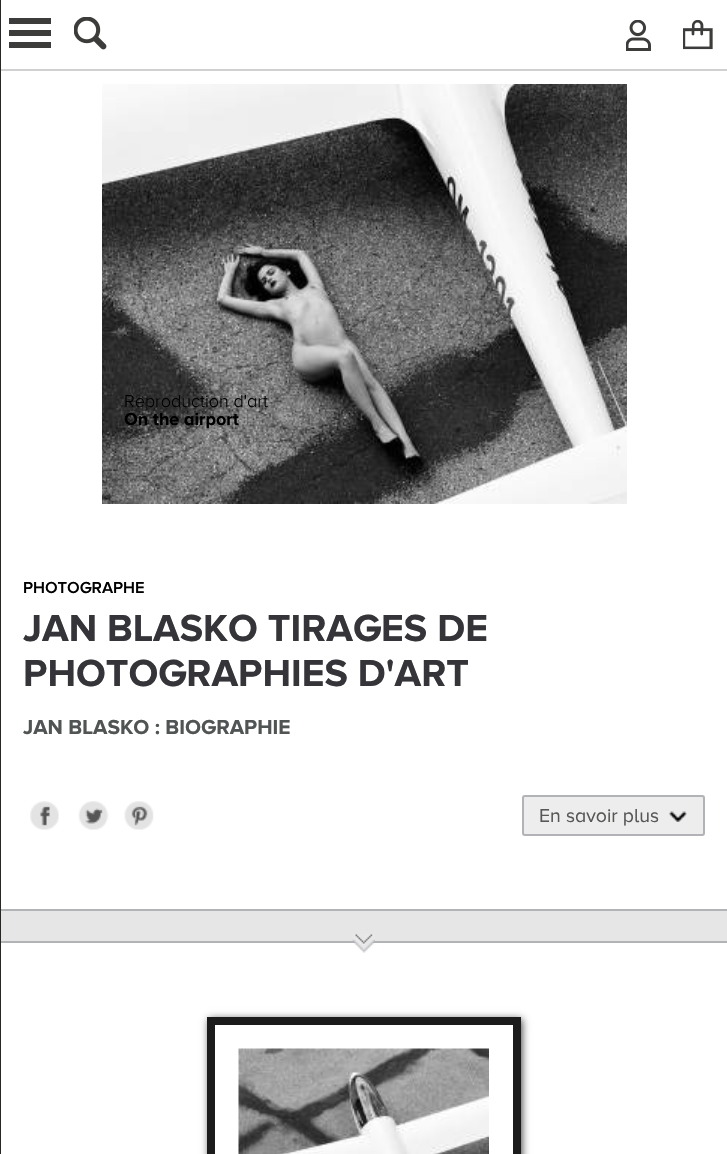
void draw(SkCanvas* canvas) {
    SkPaint paint;
    paint.setAntiAlias(true);
    auto face = [&](const char* family, int weight, float size, bool italic = false) {
        SkFontStyle style(weight, SkFontStyle::kNormal_Width,
            italic ? SkFontStyle::kItalic_Slant : SkFontStyle::kUpright_Slant);
        SkFont result(fontMgr->matchFamilyStyle(family, style), size);
        result.setSubpixel(true);
        return result;
    };
    auto write = [&](const char* s, float x, float y, const SkFont& font, SkColor color) {
        SkPaint ink(SkColor4f::FromColor(color));
        ink.setAntiAlias(true);
        canvas->drawString(s, x, y, font, ink);
    };
    auto block = [&](float x, float y, float w, float h, SkColor color) {
        SkPaint ink(SkColor4f::FromColor(color));
        ink.setAntiAlias(true);
        canvas->drawRect(SkRect::MakeXYWH(x, y, w, h), ink);
    };
    auto card = [&](float x, float y, float w, float h, float radius, SkColor color) {
        SkPaint ink(SkColor4f::FromColor(color));
        ink.setAntiAlias(true);
        canvas->drawRoundRect(SkRect::MakeXYWH(x, y, w, h), radius, radius, ink);
    };
    auto paste = [&](const char* path, float x, float y, float w, float h) {
        auto image = SkImages::DeferredFromEncodedData(SkData::MakeFromFileName(path));
        canvas->drawImageRect(image, SkRect::MakeXYWH(x, y, w, h), SkSamplingOptions());
    };
    canvas->clear(SK_ColorWHITE);
    block(0, 69, 727, 2, SkColorSetRGB(208, 208, 208));
    block(0, 909, 727, 2, SkColorSetRGB(177, 179, 182));
    block(0, 941, 727, 2, SkColorSetRGB(177, 179, 182));
    block(0, 0, 1, 1154, SkColorSetRGB(39, 39, 38));
    block(9, 18, 42, 6, SkColorSetRGB(60, 60, 59));
    block(9, 30, 42, 6, SkColorSetRGB(60, 60, 59));
    block(9, 42, 42, 6, SkColorSetRGB(60, 60, 59));
    paste("pic1.png", 74, 17, 33, 33);
    paste("pic2.png", 626, 20, 25, 31);
    paste("pic3.png", 683, 20, 30, 30);
    paste("pic4.png", 102, 84, 525, 420);
    auto kFont1 = face("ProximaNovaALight", 300, 18);
    write("Reproduction d'art", 124, 407, kFont1, SK_ColorBLACK);
    auto kFont2 = face("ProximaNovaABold", 700, 18);
    write("On the airport", 124, 425, kFont2, SK_ColorBLACK);
    auto kFont3 = face("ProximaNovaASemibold", 600, 16.5f);
    write("PHOTOGRAPHE", 23, 593, kFont3, SK_ColorBLACK);
    auto kFont4 = face("ProximaNovaABold", 700, 39);
    write("JAN BLASKO TIRAGES DE", 23, 641, kFont4, SkColorSetRGB(52, 52, 57));
    write("PHOTOGRAPHIES D'ART", 23, 686, kFont4, SkColorSetRGB(52, 52, 57));
    auto kFont5 = face("ProximaNovaABold", 700, 21);
    write("JAN BLASKO : BIOGRAPHIE", 23, 734, kFont5, SkColorSetRGB(81, 84, 84));
    paste("pic5.png", 30, 801, 29, 29);
    paste("pic6.png", 78, 801, 31, 29);
    paste("pic7.png", 124, 801, 30, 29);
    card(522, 795, 183, 41, 3, SkColorSetRGB(237, 237, 237));
    paste("pic8.png", 669, 811, 18, 11);
    paint.setStyle(SkPaint::kStroke_Style);
    paint.setStrokeWidth(2);
    paint.setColor(SkColorSetRGB(177, 179, 182));
    canvas->drawRoundRect(SkRect::MakeXYWH(523, 796, 181, 39), 2, 2, paint);
    auto kFont6 = face("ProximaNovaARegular", 400, 19.5f);
    write("En savoir plus", 539, 822, kFont6, SkColorSetRGB(87, 87, 86));
    block(1, 911, 726, 30, SkColorSetRGB(230, 230, 231));
    paste("pic9.png", 352, 934, 23, 19);
    canvas->save();
    canvas->clipPath(SkPathBuilder(SkPathFillType::kEvenOdd).moveTo(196, 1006).lineTo(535, 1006).lineTo(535, 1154).lineTo(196, 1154).close().moveTo(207, 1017).lineTo(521, 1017).lineTo(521, 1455).lineTo(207, 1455).close().detach(), true);
    paint.setStyle(SkPaint::kFill_Style);
    paint.setColor(SkColorSetRGB(64, 64, 65));
    paint.setMaskFilter(SkMaskFilter::MakeBlur(kNormal_SkBlurStyle, 4));
    canvas->drawRect(SkRect::MakeXYWH(209, 1019, 313, 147), paint);
    paint.setMaskFilter(nullptr);
    canvas->restore();
    paint.setStyle(SkPaint::kStroke_Style);
    paint.setStrokeWidth(8);
    paint.setColor(SkColorSetRGB(27, 27, 27));
    canvas->drawRect(SkRect::MakeXYWH(211, 1021, 306, 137), paint);
    paste("pic10.png", 238, 1048, 251, 106);
}
